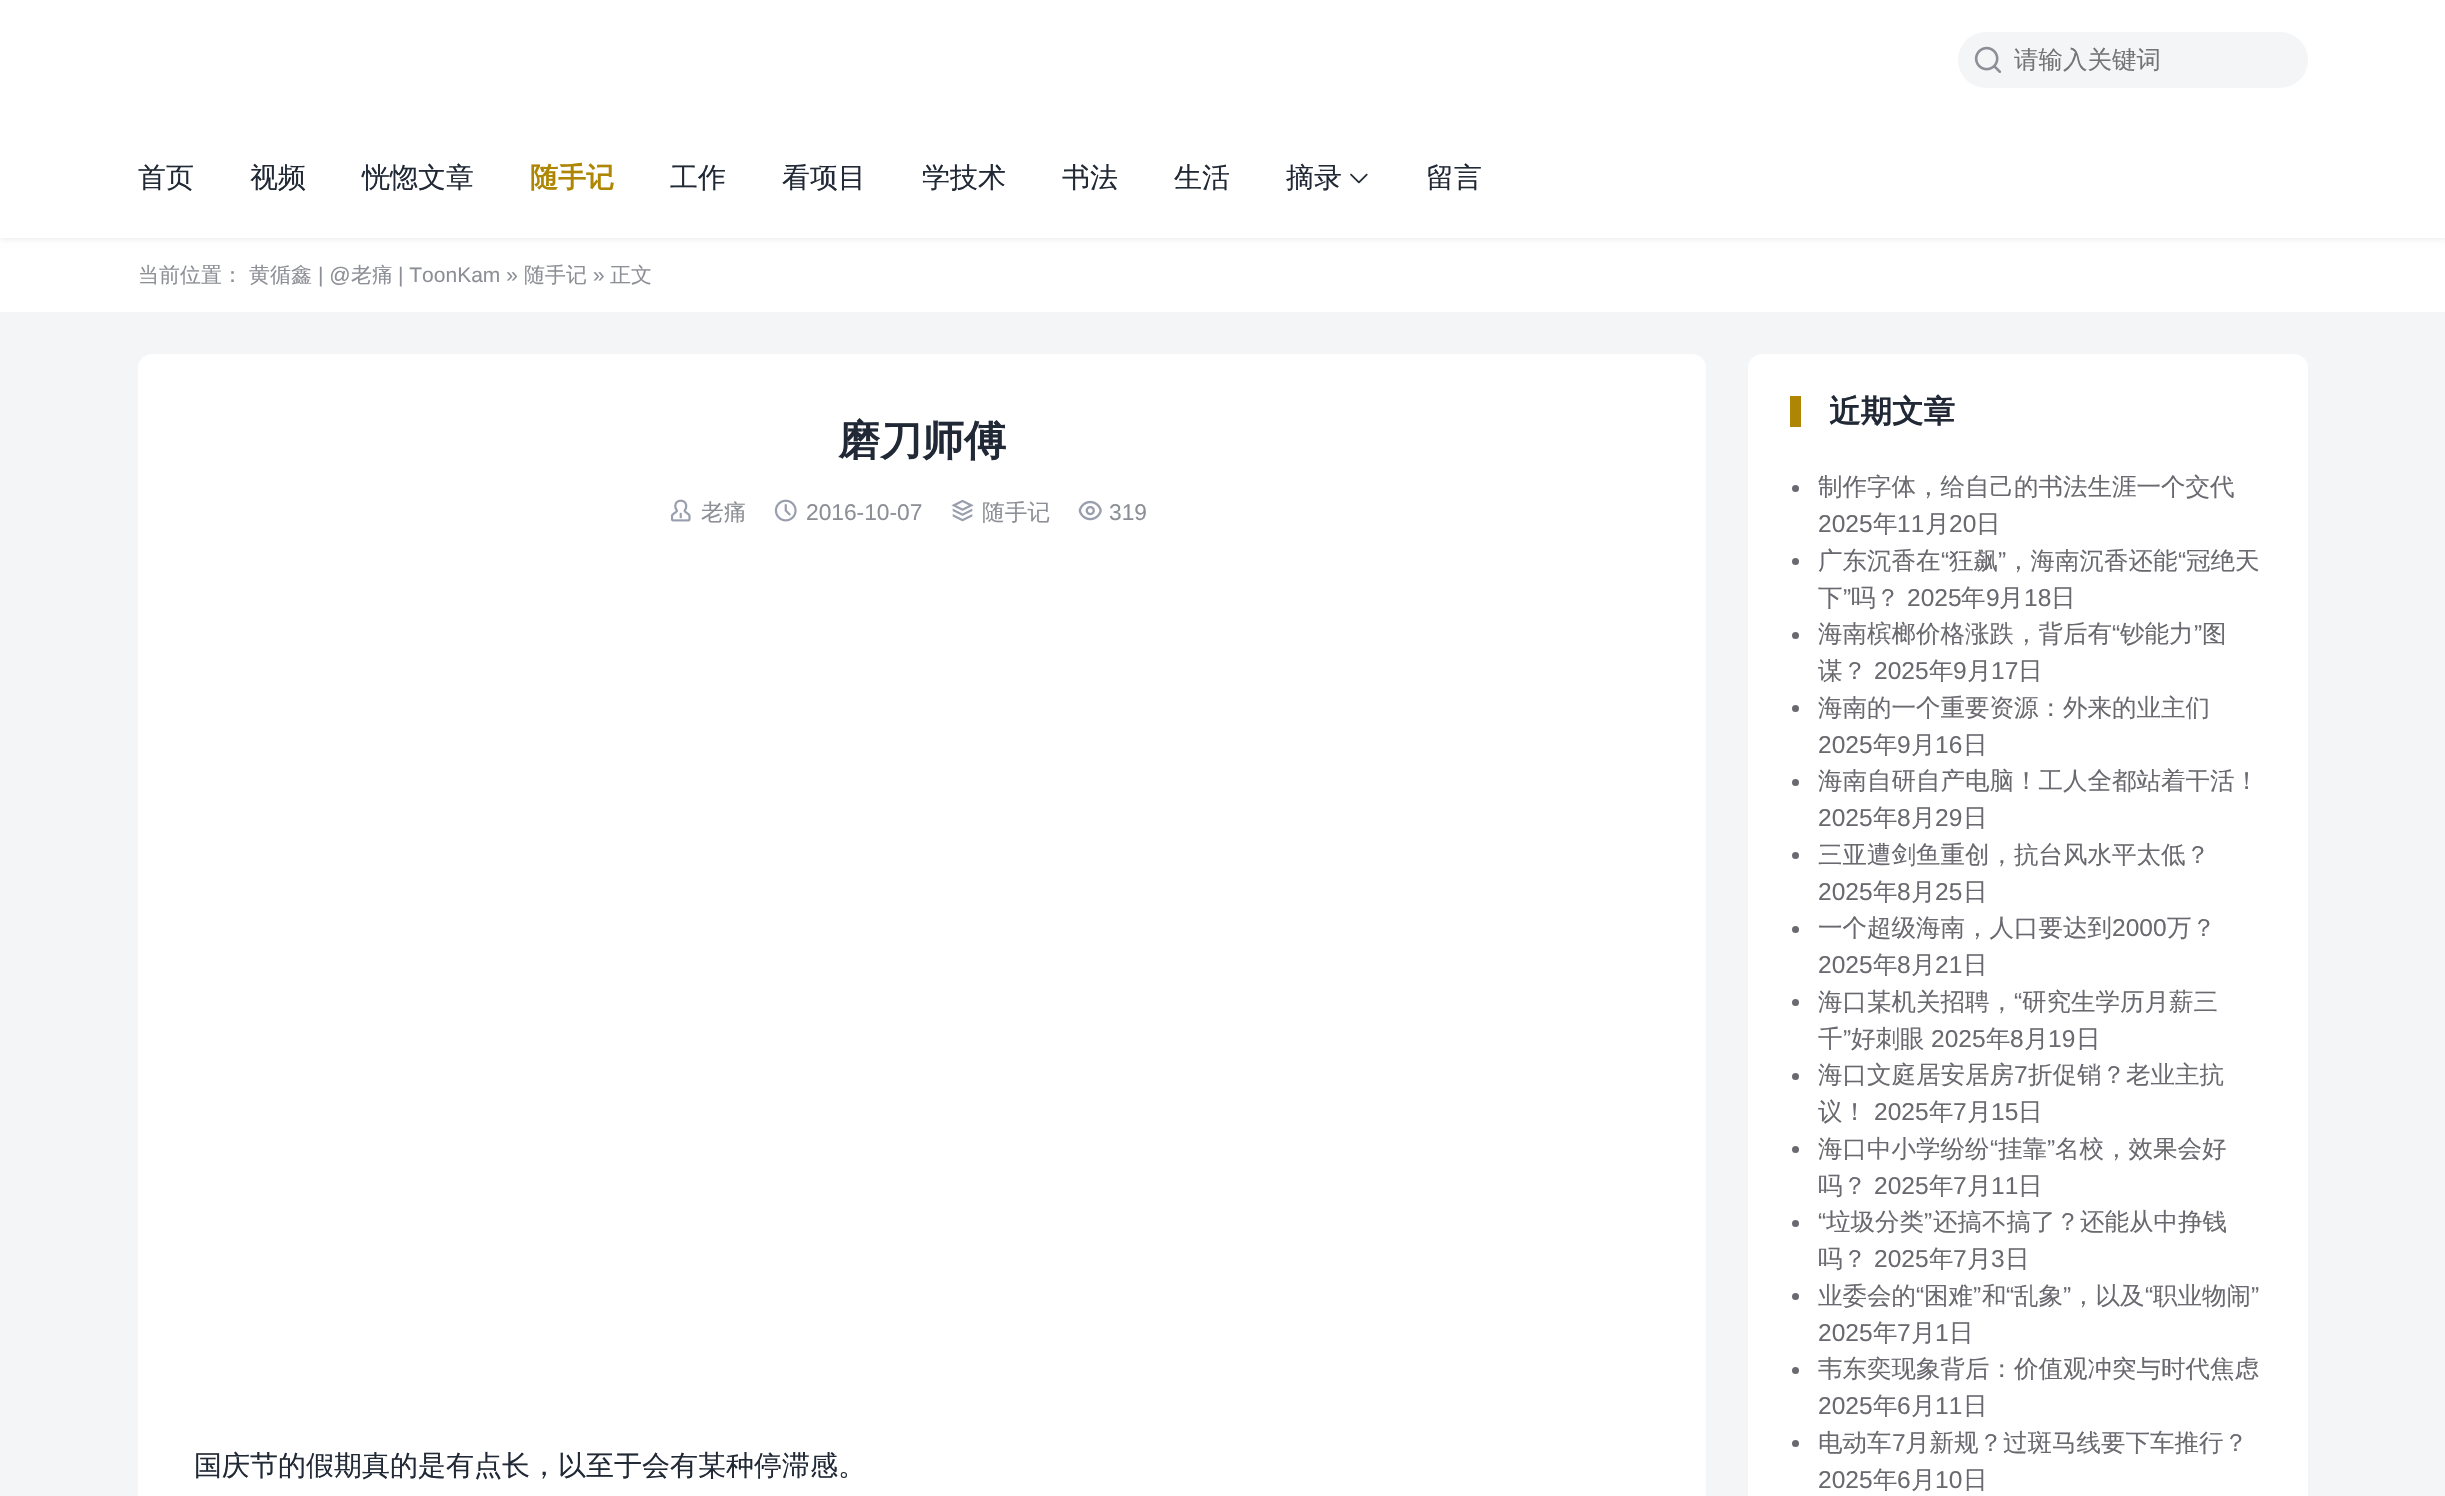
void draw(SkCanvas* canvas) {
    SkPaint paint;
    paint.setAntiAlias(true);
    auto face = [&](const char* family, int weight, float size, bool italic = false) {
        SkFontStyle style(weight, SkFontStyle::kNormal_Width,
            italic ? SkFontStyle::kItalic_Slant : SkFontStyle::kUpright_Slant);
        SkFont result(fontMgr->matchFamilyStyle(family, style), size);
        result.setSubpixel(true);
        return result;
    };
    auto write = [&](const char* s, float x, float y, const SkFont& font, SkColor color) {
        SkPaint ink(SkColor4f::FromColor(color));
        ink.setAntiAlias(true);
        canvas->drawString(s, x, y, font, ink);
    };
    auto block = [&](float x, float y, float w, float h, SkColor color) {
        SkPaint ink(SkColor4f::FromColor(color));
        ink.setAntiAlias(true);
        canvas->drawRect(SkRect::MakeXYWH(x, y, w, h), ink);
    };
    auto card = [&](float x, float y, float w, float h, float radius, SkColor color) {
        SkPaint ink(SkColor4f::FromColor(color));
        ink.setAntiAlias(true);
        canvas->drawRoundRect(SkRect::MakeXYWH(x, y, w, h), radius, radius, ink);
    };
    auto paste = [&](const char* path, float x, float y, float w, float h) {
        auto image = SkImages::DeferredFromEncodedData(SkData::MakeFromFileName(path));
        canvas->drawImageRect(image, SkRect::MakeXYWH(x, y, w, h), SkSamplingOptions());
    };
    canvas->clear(SkColorSetRGB(243, 245, 247));
    block(0, 238, 2445, 74, SK_ColorWHITE);
    paint.setColor(SkColorSetARGB(26, 0, 0, 0));
    paint.setMaskFilter(SkMaskFilter::MakeBlur(kNormal_SkBlurStyle, 3.5f));
    canvas->drawRect(SkRect::MakeXYWH(0, 0, 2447, 238), paint);
    paint.setMaskFilter(nullptr);
    block(0, 0, 2445, 238, SK_ColorWHITE);
    card(1958, 32, 350, 56, 28, SkColorSetRGB(243, 245, 247));
    paste("pic1.png", 1974, 46, 28, 27);
    auto kFont1 = face("WenQuanYi Zen Hei", 500, 24.5f);
    write("请输入关键词", 2014, 68, kFont1, SkColorSetRGB(117, 117, 117));
    auto kFont2 = face("WenQuanYi Zen Hei", 500, 28);
    write("首页", 138, 187, kFont2, SkColorSetRGB(32, 41, 53));
    write("视频", 250, 187, kFont2, SkColorSetRGB(32, 41, 53));
    write("恍惚文章", 362, 187, kFont2, SkColorSetRGB(32, 41, 53));
    auto kFont3 = face("WenQuanYi Zen Hei", 700, 28);
    write("随手记", 530, 187, kFont3, SkColorSetRGB(175, 134, 4));
    write("工作", 670, 187, kFont2, SkColorSetRGB(32, 41, 53));
    write("看项目", 782, 187, kFont2, SkColorSetRGB(32, 41, 53));
    write("学技术", 922, 187, kFont2, SkColorSetRGB(32, 41, 53));
    write("书法", 1062, 187, kFont2, SkColorSetRGB(32, 41, 53));
    write("生活", 1174, 187, kFont2, SkColorSetRGB(32, 41, 53));
    write("摘录", 1286, 187, kFont2, SkColorSetRGB(32, 41, 53));
    paste("pic2.png", 1350, 173, 18, 11);
    write("留言", 1426, 187, kFont2, SkColorSetRGB(32, 41, 53));
    auto kFont4 = face("WenQuanYi Zen Hei", 500, 21);
    write("当前位置：", 138, 282, kFont4, SkColorSetRGB(141, 143, 150));
    write("黄循鑫", 249, 282, kFont4, SkColorSetRGB(141, 143, 150));
    auto kFont5 = face("Liberation Sans", 400, 21);
    write("| @", 318, 282, kFont5, SkColorSetRGB(141, 143, 150));
    write("老痛", 351, 282, kFont4, SkColorSetRGB(141, 143, 150));
    write("| ToonKam »", 398, 282, kFont5, SkColorSetRGB(141, 143, 150));
    write("随手记", 524, 282, kFont4, SkColorSetRGB(141, 143, 150));
    write("»", 593, 282, kFont5, SkColorSetRGB(141, 143, 150));
    write("正文", 610, 282, kFont4, SkColorSetRGB(141, 143, 150));
    card(138, 354, 1568, 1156, 14, SK_ColorWHITE);
    auto kFont6 = face("WenQuanYi Zen Hei", 700, 42);
    write("磨刀师傅", 838, 455, kFont6, SkColorSetRGB(32, 41, 53));
    paste("pic3.png", 670, 499, 21, 23);
    auto kFont7 = face("WenQuanYi Zen Hei", 500, 22.75f);
    write("老痛", 701, 520, kFont7, SkColorSetRGB(141, 143, 150));
    paste("pic4.png", 774, 499, 23, 23);
    auto kFont8 = face("Liberation Sans", 400, 22.75f);
    write("2016-10-07", 806, 520, kFont8, SkColorSetRGB(141, 143, 150));
    paste("pic5.png", 951, 499, 23, 23);
    write("随手记", 982, 520, kFont7, SkColorSetRGB(141, 143, 150));
    paste("pic6.png", 1078, 500, 24, 21);
    write("319", 1109, 520, kFont8, SkColorSetRGB(141, 143, 150));
    write("国庆节的假期真的是有点长，以至于会有某种停滞感。", 194, 1475, kFont2, SkColorSetRGB(32, 41, 53));
    card(1748, 354, 560, 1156, 14, SK_ColorWHITE);
    block(1790, 396, 11, 31, SkColorSetRGB(175, 134, 4));
    auto kFont9 = face("WenQuanYi Zen Hei", 700, 31.5f);
    write("近期文章", 1829, 422, kFont9, SkColorSetRGB(32, 41, 53));
    paint.setColor(SkColorSetRGB(107, 105, 112));
    canvas->drawCircle(1795.5f, 488.5f, 3.5f, paint);
    write("制作字体，给自己的书法生涯一个交代", 1818, 495, kFont1, SkColorSetRGB(107, 105, 112));
    auto kFont10 = face("Liberation Sans", 400, 24.5f);
    write("2025", 1818, 532, kFont10, SkColorSetRGB(107, 105, 112));
    write("年", 1873, 532, kFont1, SkColorSetRGB(107, 105, 112));
    write("11", 1897, 532, kFont10, SkColorSetRGB(107, 105, 112));
    write("月", 1925, 532, kFont1, SkColorSetRGB(107, 105, 112));
    write("20", 1949, 532, kFont10, SkColorSetRGB(107, 105, 112));
    write("日", 1976, 532, kFont1, SkColorSetRGB(107, 105, 112));
    write("广东沉香在", 1818, 569, kFont1, SkColorSetRGB(107, 105, 112));
    write("“", 1941, 569, kFont10, SkColorSetRGB(107, 105, 112));
    write("狂飙", 1949, 569, kFont1, SkColorSetRGB(107, 105, 112));
    write("”", 1998, 569, kFont10, SkColorSetRGB(107, 105, 112));
    write("，海南沉香还能", 2006, 569, kFont1, SkColorSetRGB(107, 105, 112));
    write("“", 2178, 569, kFont10, SkColorSetRGB(107, 105, 112));
    write("冠绝天", 2186, 569, kFont1, SkColorSetRGB(107, 105, 112));
    canvas->drawCircle(1795.5f, 561.5f, 3.5f, paint);
    write("下", 1818, 606, kFont1, SkColorSetRGB(107, 105, 112));
    write("”", 1843, 606, kFont10, SkColorSetRGB(107, 105, 112));
    write("吗？", 1851, 606, kFont1, SkColorSetRGB(107, 105, 112));
    write("2025", 1907, 606, kFont10, SkColorSetRGB(107, 105, 112));
    write("年", 1961, 606, kFont1, SkColorSetRGB(107, 105, 112));
    write("9", 1986, 606, kFont10, SkColorSetRGB(107, 105, 112));
    write("月", 1999, 606, kFont1, SkColorSetRGB(107, 105, 112));
    write("18", 2024, 606, kFont10, SkColorSetRGB(107, 105, 112));
    write("日", 2051, 606, kFont1, SkColorSetRGB(107, 105, 112));
    write("海南槟榔价格涨跌，背后有", 1818, 642, kFont1, SkColorSetRGB(107, 105, 112));
    write("“", 2112, 642, kFont10, SkColorSetRGB(107, 105, 112));
    write("钞能力", 2120, 642, kFont1, SkColorSetRGB(107, 105, 112));
    write("”", 2194, 642, kFont10, SkColorSetRGB(107, 105, 112));
    write("图", 2202, 642, kFont1, SkColorSetRGB(107, 105, 112));
    canvas->drawCircle(1795.5f, 635.5f, 3.5f, paint);
    write("谋？", 1818, 679, kFont1, SkColorSetRGB(107, 105, 112));
    write("2025", 1874, 679, kFont10, SkColorSetRGB(107, 105, 112));
    write("年", 1929, 679, kFont1, SkColorSetRGB(107, 105, 112));
    write("9", 1953, 679, kFont10, SkColorSetRGB(107, 105, 112));
    write("月", 1967, 679, kFont1, SkColorSetRGB(107, 105, 112));
    write("17", 1991, 679, kFont10, SkColorSetRGB(107, 105, 112));
    write("日", 2018, 679, kFont1, SkColorSetRGB(107, 105, 112));
    canvas->drawCircle(1795.5f, 708.5f, 3.5f, paint);
    write("海南的一个重要资源：外来的业主们", 1818, 716, kFont1, SkColorSetRGB(107, 105, 112));
    write("2025", 1818, 753, kFont10, SkColorSetRGB(107, 105, 112));
    write("年", 1873, 753, kFont1, SkColorSetRGB(107, 105, 112));
    write("9", 1897, 753, kFont10, SkColorSetRGB(107, 105, 112));
    write("月", 1911, 753, kFont1, SkColorSetRGB(107, 105, 112));
    write("16", 1935, 753, kFont10, SkColorSetRGB(107, 105, 112));
    write("日", 1963, 753, kFont1, SkColorSetRGB(107, 105, 112));
    canvas->drawCircle(1795.5f, 782.5f, 3.5f, paint);
    write("海南自研自产电脑！工人全都站着干活！", 1818, 789, kFont1, SkColorSetRGB(107, 105, 112));
    write("2025", 1818, 826, kFont10, SkColorSetRGB(107, 105, 112));
    write("年", 1873, 826, kFont1, SkColorSetRGB(107, 105, 112));
    write("8", 1897, 826, kFont10, SkColorSetRGB(107, 105, 112));
    write("月", 1911, 826, kFont1, SkColorSetRGB(107, 105, 112));
    write("29", 1935, 826, kFont10, SkColorSetRGB(107, 105, 112));
    write("日", 1963, 826, kFont1, SkColorSetRGB(107, 105, 112));
    canvas->drawCircle(1795.5f, 855.5f, 3.5f, paint);
    write("三亚遭剑鱼重创，抗台风水平太低？", 1818, 863, kFont1, SkColorSetRGB(107, 105, 112));
    write("2025", 1818, 900, kFont10, SkColorSetRGB(107, 105, 112));
    write("年", 1873, 900, kFont1, SkColorSetRGB(107, 105, 112));
    write("8", 1897, 900, kFont10, SkColorSetRGB(107, 105, 112));
    write("月", 1911, 900, kFont1, SkColorSetRGB(107, 105, 112));
    write("25", 1935, 900, kFont10, SkColorSetRGB(107, 105, 112));
    write("日", 1963, 900, kFont1, SkColorSetRGB(107, 105, 112));
    canvas->drawCircle(1795.5f, 929.5f, 3.5f, paint);
    write("一个超级海南，人口要达到", 1818, 936, kFont1, SkColorSetRGB(107, 105, 112));
    write("2000", 2112, 936, kFont10, SkColorSetRGB(107, 105, 112));
    write("万？", 2167, 936, kFont1, SkColorSetRGB(107, 105, 112));
    write("2025", 1818, 973, kFont10, SkColorSetRGB(107, 105, 112));
    write("年", 1873, 973, kFont1, SkColorSetRGB(107, 105, 112));
    write("8", 1897, 973, kFont10, SkColorSetRGB(107, 105, 112));
    write("月", 1911, 973, kFont1, SkColorSetRGB(107, 105, 112));
    write("21", 1935, 973, kFont10, SkColorSetRGB(107, 105, 112));
    write("日", 1963, 973, kFont1, SkColorSetRGB(107, 105, 112));
    write("海口某机关招聘，", 1818, 1010, kFont1, SkColorSetRGB(107, 105, 112));
    write("“", 2014, 1010, kFont10, SkColorSetRGB(107, 105, 112));
    write("研究生学历月薪三", 2022, 1010, kFont1, SkColorSetRGB(107, 105, 112));
    canvas->drawCircle(1795.5f, 1002.5f, 3.5f, paint);
    write("千", 1818, 1047, kFont1, SkColorSetRGB(107, 105, 112));
    write("”", 1843, 1047, kFont10, SkColorSetRGB(107, 105, 112));
    write("好刺眼", 1851, 1047, kFont1, SkColorSetRGB(107, 105, 112));
    write("2025", 1931, 1047, kFont10, SkColorSetRGB(107, 105, 112));
    write("年", 1986, 1047, kFont1, SkColorSetRGB(107, 105, 112));
    write("8", 2010, 1047, kFont10, SkColorSetRGB(107, 105, 112));
    write("月", 2024, 1047, kFont1, SkColorSetRGB(107, 105, 112));
    write("19", 2048, 1047, kFont10, SkColorSetRGB(107, 105, 112));
    write("日", 2076, 1047, kFont1, SkColorSetRGB(107, 105, 112));
    canvas->drawCircle(1795.5f, 1076.5f, 3.5f, paint);
    write("海口文庭居安居房", 1818, 1083, kFont1, SkColorSetRGB(107, 105, 112));
    write("7", 2014, 1083, kFont10, SkColorSetRGB(107, 105, 112));
    write("折促销？老业主抗", 2028, 1083, kFont1, SkColorSetRGB(107, 105, 112));
    write("议！", 1818, 1120, kFont1, SkColorSetRGB(107, 105, 112));
    write("2025", 1874, 1120, kFont10, SkColorSetRGB(107, 105, 112));
    write("年", 1929, 1120, kFont1, SkColorSetRGB(107, 105, 112));
    write("7", 1953, 1120, kFont10, SkColorSetRGB(107, 105, 112));
    write("月", 1967, 1120, kFont1, SkColorSetRGB(107, 105, 112));
    write("15", 1991, 1120, kFont10, SkColorSetRGB(107, 105, 112));
    write("日", 2018, 1120, kFont1, SkColorSetRGB(107, 105, 112));
    write("海口中小学纷纷", 1818, 1157, kFont1, SkColorSetRGB(107, 105, 112));
    write("“", 1990, 1157, kFont10, SkColorSetRGB(107, 105, 112));
    write("挂靠", 1998, 1157, kFont1, SkColorSetRGB(107, 105, 112));
    write("”", 2047, 1157, kFont10, SkColorSetRGB(107, 105, 112));
    write("名校，效果会好", 2055, 1157, kFont1, SkColorSetRGB(107, 105, 112));
    canvas->drawCircle(1795.5f, 1149.5f, 3.5f, paint);
    write("吗？", 1818, 1194, kFont1, SkColorSetRGB(107, 105, 112));
    write("2025", 1874, 1194, kFont10, SkColorSetRGB(107, 105, 112));
    write("年", 1929, 1194, kFont1, SkColorSetRGB(107, 105, 112));
    write("7", 1953, 1194, kFont10, SkColorSetRGB(107, 105, 112));
    write("月", 1967, 1194, kFont1, SkColorSetRGB(107, 105, 112));
    write("11", 1991, 1194, kFont10, SkColorSetRGB(107, 105, 112));
    write("日", 2018, 1194, kFont1, SkColorSetRGB(107, 105, 112));
    write("“", 1818, 1230, kFont10, SkColorSetRGB(107, 105, 112));
    write("垃圾分类", 1826, 1230, kFont1, SkColorSetRGB(107, 105, 112));
    write("”", 1924, 1230, kFont10, SkColorSetRGB(107, 105, 112));
    write("还搞不搞了？还能从中挣钱", 1933, 1230, kFont1, SkColorSetRGB(107, 105, 112));
    canvas->drawCircle(1795.5f, 1223.5f, 3.5f, paint);
    write("吗？", 1818, 1267, kFont1, SkColorSetRGB(107, 105, 112));
    write("2025", 1874, 1267, kFont10, SkColorSetRGB(107, 105, 112));
    write("年", 1929, 1267, kFont1, SkColorSetRGB(107, 105, 112));
    write("7", 1953, 1267, kFont10, SkColorSetRGB(107, 105, 112));
    write("月", 1967, 1267, kFont1, SkColorSetRGB(107, 105, 112));
    write("3", 1991, 1267, kFont10, SkColorSetRGB(107, 105, 112));
    write("日", 2005, 1267, kFont1, SkColorSetRGB(107, 105, 112));
    write("业委会的", 1818, 1304, kFont1, SkColorSetRGB(107, 105, 112));
    write("“", 1916, 1304, kFont10, SkColorSetRGB(107, 105, 112));
    write("困难", 1924, 1304, kFont1, SkColorSetRGB(107, 105, 112));
    write("”", 1973, 1304, kFont10, SkColorSetRGB(107, 105, 112));
    write("和", 1982, 1304, kFont1, SkColorSetRGB(107, 105, 112));
    write("“", 2006, 1304, kFont10, SkColorSetRGB(107, 105, 112));
    write("乱象", 2014, 1304, kFont1, SkColorSetRGB(107, 105, 112));
    write("”", 2063, 1304, kFont10, SkColorSetRGB(107, 105, 112));
    write("，以及", 2071, 1304, kFont1, SkColorSetRGB(107, 105, 112));
    write("“", 2145, 1304, kFont10, SkColorSetRGB(107, 105, 112));
    write("职业物闹", 2153, 1304, kFont1, SkColorSetRGB(107, 105, 112));
    write("”", 2251, 1304, kFont10, SkColorSetRGB(107, 105, 112));
    canvas->drawCircle(1795.5f, 1296.5f, 3.5f, paint);
    write("2025", 1818, 1341, kFont10, SkColorSetRGB(107, 105, 112));
    write("年", 1873, 1341, kFont1, SkColorSetRGB(107, 105, 112));
    write("7", 1897, 1341, kFont10, SkColorSetRGB(107, 105, 112));
    write("月", 1911, 1341, kFont1, SkColorSetRGB(107, 105, 112));
    write("1", 1935, 1341, kFont10, SkColorSetRGB(107, 105, 112));
    write("日", 1949, 1341, kFont1, SkColorSetRGB(107, 105, 112));
    canvas->drawCircle(1795.5f, 1370.5f, 3.5f, paint);
    write("韦东奕现象背后：价值观冲突与时代焦虑", 1818, 1377, kFont1, SkColorSetRGB(107, 105, 112));
    write("2025", 1818, 1414, kFont10, SkColorSetRGB(107, 105, 112));
    write("年", 1873, 1414, kFont1, SkColorSetRGB(107, 105, 112));
    write("6", 1897, 1414, kFont10, SkColorSetRGB(107, 105, 112));
    write("月", 1911, 1414, kFont1, SkColorSetRGB(107, 105, 112));
    write("11", 1935, 1414, kFont10, SkColorSetRGB(107, 105, 112));
    write("日", 1963, 1414, kFont1, SkColorSetRGB(107, 105, 112));
    canvas->drawCircle(1795.5f, 1443.5f, 3.5f, paint);
    write("电动车", 1818, 1451, kFont1, SkColorSetRGB(107, 105, 112));
    write("7", 1892, 1451, kFont10, SkColorSetRGB(107, 105, 112));
    write("月新规？过斑马线要下车推行？", 1905, 1451, kFont1, SkColorSetRGB(107, 105, 112));
    write("2025", 1818, 1488, kFont10, SkColorSetRGB(107, 105, 112));
    write("年", 1873, 1488, kFont1, SkColorSetRGB(107, 105, 112));
    write("6", 1897, 1488, kFont10, SkColorSetRGB(107, 105, 112));
    write("月", 1911, 1488, kFont1, SkColorSetRGB(107, 105, 112));
    write("10", 1935, 1488, kFont10, SkColorSetRGB(107, 105, 112));
    write("日", 1963, 1488, kFont1, SkColorSetRGB(107, 105, 112));
}
